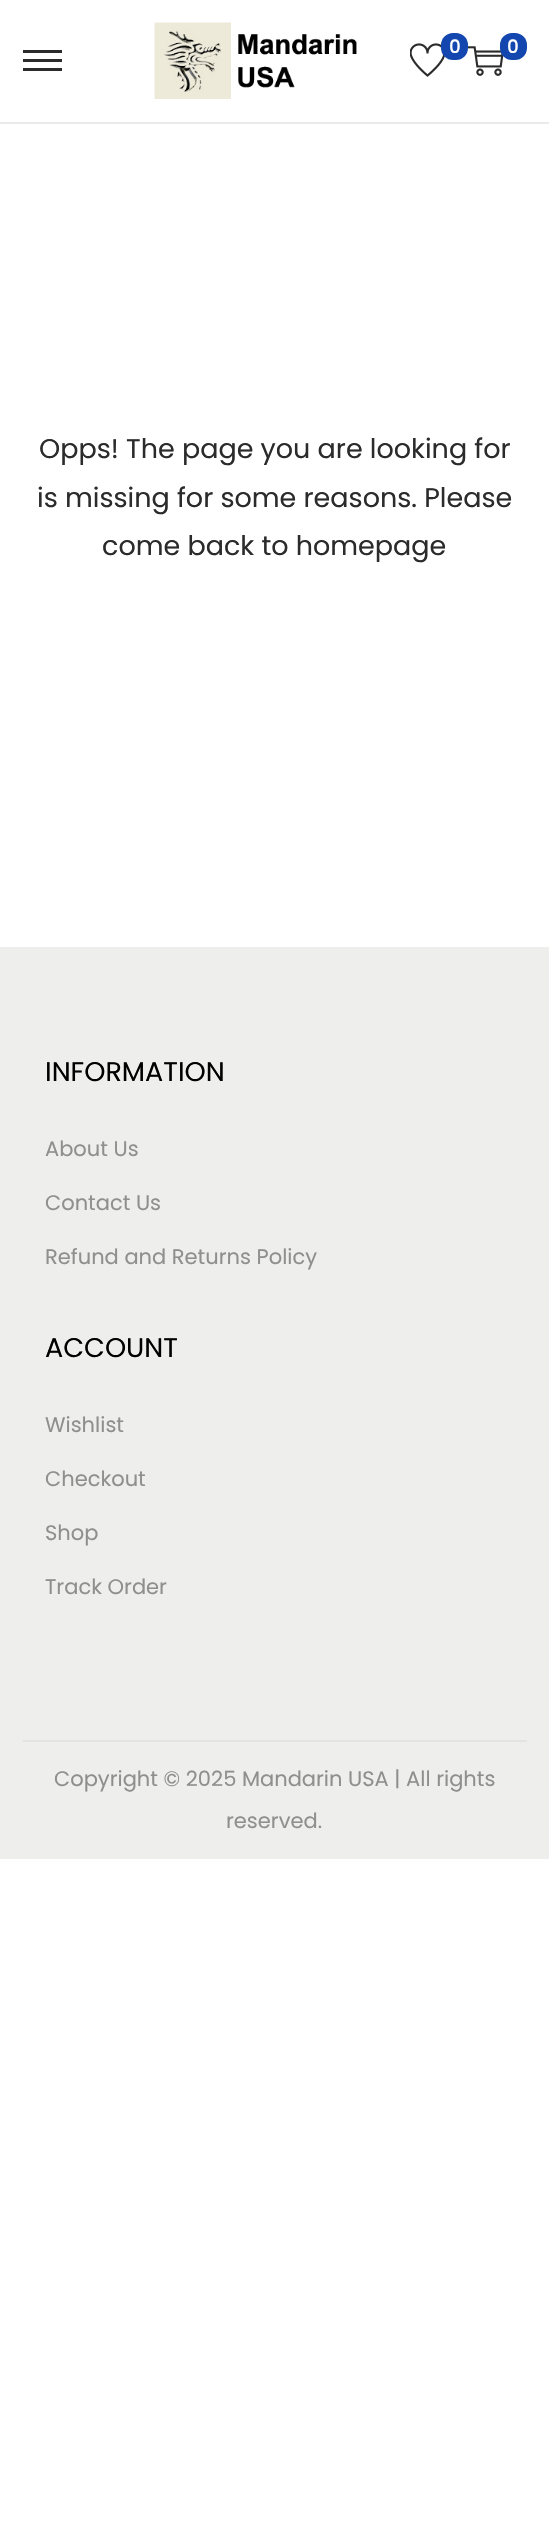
void draw(SkCanvas* canvas) {
    SkPaint paint;
    paint.setAntiAlias(true);
    auto face = [&](const char* family, int weight, float size, bool italic = false) {
        SkFontStyle style(weight, SkFontStyle::kNormal_Width,
            italic ? SkFontStyle::kItalic_Slant : SkFontStyle::kUpright_Slant);
        SkFont result(fontMgr->matchFamilyStyle(family, style), size);
        result.setSubpixel(true);
        return result;
    };
    auto write = [&](const char* s, float x, float y, const SkFont& font, SkColor color) {
        SkPaint ink(SkColor4f::FromColor(color));
        ink.setAntiAlias(true);
        canvas->drawString(s, x, y, font, ink);
    };
    auto block = [&](float x, float y, float w, float h, SkColor color) {
        SkPaint ink(SkColor4f::FromColor(color));
        ink.setAntiAlias(true);
        canvas->drawRect(SkRect::MakeXYWH(x, y, w, h), ink);
    };
    auto card = [&](float x, float y, float w, float h, float radius, SkColor color) {
        SkPaint ink(SkColor4f::FromColor(color));
        ink.setAntiAlias(true);
        canvas->drawRoundRect(SkRect::MakeXYWH(x, y, w, h), radius, radius, ink);
    };
    auto paste = [&](const char* path, float x, float y, float w, float h) {
        auto image = SkImages::DeferredFromEncodedData(SkData::MakeFromFileName(path));
        canvas->drawImageRect(image, SkRect::MakeXYWH(x, y, w, h), SkSamplingOptions());
    };
    canvas->clear(SK_ColorWHITE);
    block(0, 122, 549, 2, SkColorSetRGB(234, 234, 234));
    paste("pic1.png", 154, 22, 203, 77);
    paste("pic2.png", 410, 43, 35, 34);
    card(441, 33, 27, 27, 12, SkColorSetRGB(19, 70, 175));
    auto kFont1 = face("Poppins", 700, 18);
    write("0", 449, 53, kFont1, SK_ColorWHITE);
    paste("pic3.png", 468, 46, 36, 30);
    card(500, 33, 27, 27, 12, SkColorSetRGB(19, 70, 175));
    write("0", 507, 53, kFont1, SK_ColorWHITE);
    block(23, 59, 39, 3, SkColorSetRGB(43, 43, 43));
    block(23, 50, 39, 3, SkColorSetRGB(43, 43, 43));
    block(23, 68, 39, 3, SkColorSetRGB(43, 43, 43));
    auto kFont2 = face("Poppins", 400, 27);
    write("Opps! The page you are looking for", 39, 458, kFont2, SkColorSetRGB(43, 43, 43));
    write("is missing for some reasons. Please", 37, 507, kFont2, SkColorSetRGB(43, 43, 43));
    write("come back to homepage", 102, 555, kFont2, SkColorSetRGB(43, 43, 43));
    block(0, 947, 549, 912, SkColorSetRGB(238, 238, 236));
    write("INFORMATION", 45, 1081, kFont2, SK_ColorBLACK);
    auto kFont3 = face("Poppins", 400, 21);
    write("About Us", 45, 1156, kFont3, SkColorSetRGB(143, 143, 143));
    write("Contact Us", 45, 1210, kFont3, SkColorSetRGB(143, 143, 143));
    write("Refund and Returns Policy", 45, 1264, kFont3, SkColorSetRGB(143, 143, 143));
    write("ACCOUNT", 45, 1357, kFont2, SK_ColorBLACK);
    write("Wishlist", 45, 1432, kFont3, SkColorSetRGB(143, 143, 143));
    write("Checkout", 45, 1486, kFont3, SkColorSetRGB(143, 143, 143));
    write("Shop", 45, 1540, kFont3, SkColorSetRGB(143, 143, 143));
    write("Track Order", 45, 1594, kFont3, SkColorSetRGB(143, 143, 143));
    block(23, 1740, 504, 2, SkColorSetRGB(227, 227, 227));
    write("Copyright © 2025 Mandarin USA | All rights", 54, 1786, kFont3, SkColorSetRGB(143, 143, 143));
    write("reserved.", 226, 1828, kFont3, SkColorSetRGB(143, 143, 143));
}
